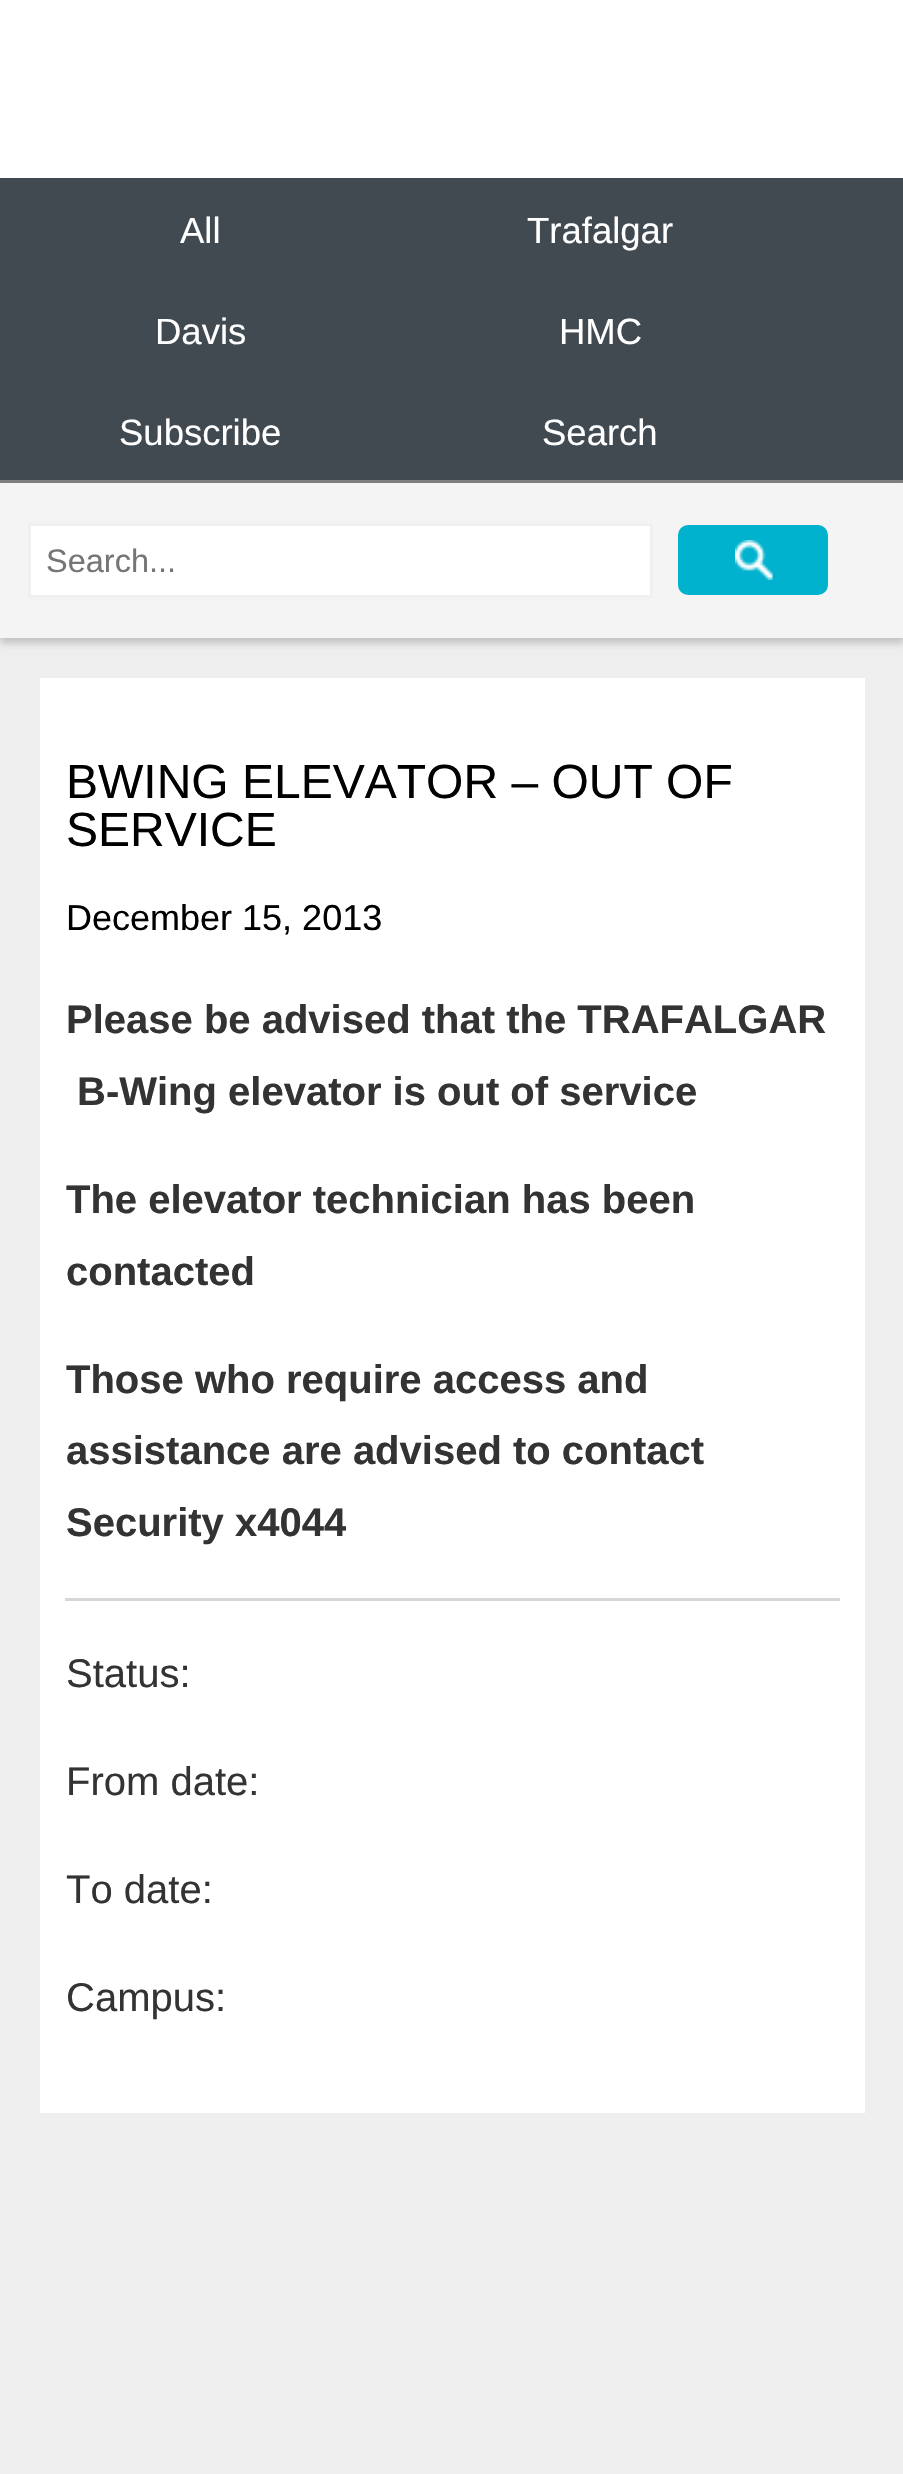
void draw(SkCanvas* canvas) {
    SkPaint paint;
    paint.setAntiAlias(true);
    auto face = [&](const char* family, int weight, float size, bool italic = false) {
        SkFontStyle style(weight, SkFontStyle::kNormal_Width,
            italic ? SkFontStyle::kItalic_Slant : SkFontStyle::kUpright_Slant);
        SkFont result(fontMgr->matchFamilyStyle(family, style), size);
        result.setSubpixel(true);
        return result;
    };
    auto write = [&](const char* s, float x, float y, const SkFont& font, SkColor color) {
        SkPaint ink(SkColor4f::FromColor(color));
        ink.setAntiAlias(true);
        canvas->drawString(s, x, y, font, ink);
    };
    auto block = [&](float x, float y, float w, float h, SkColor color) {
        SkPaint ink(SkColor4f::FromColor(color));
        ink.setAntiAlias(true);
        canvas->drawRect(SkRect::MakeXYWH(x, y, w, h), ink);
    };
    auto card = [&](float x, float y, float w, float h, float radius, SkColor color) {
        SkPaint ink(SkColor4f::FromColor(color));
        ink.setAntiAlias(true);
        canvas->drawRoundRect(SkRect::MakeXYWH(x, y, w, h), radius, radius, ink);
    };
    auto paste = [&](const char* path, float x, float y, float w, float h) {
        auto image = SkImages::DeferredFromEncodedData(SkData::MakeFromFileName(path));
        canvas->drawImageRect(image, SkRect::MakeXYWH(x, y, w, h), SkSamplingOptions());
    };
    canvas->clear(SkColorSetRGB(239, 239, 239));
    block(0, 0, 903, 178, SK_ColorWHITE);
    block(0, 178, 903, 302, SkColorSetRGB(65, 74, 81));
    block(0, 480, 903, 3, SkColorSetRGB(128, 128, 128));
    auto kFont1 = face("Liberation Sans", 400, 36.5f);
    write("All", 180, 243, kFont1, SK_ColorWHITE);
    write("Trafalgar", 527, 243, kFont1, SK_ColorWHITE);
    write("Davis", 155, 344, kFont1, SK_ColorWHITE);
    write("HMC", 559, 344, kFont1, SK_ColorWHITE);
    write("Subscribe", 119, 445, kFont1, SK_ColorWHITE);
    write("Search", 542, 445, kFont1, SK_ColorWHITE);
    canvas->save();
    canvas->clipPath(SkPathBuilder(SkPathFillType::kEvenOdd).moveTo(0, 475).lineTo(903, 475).lineTo(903, 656).lineTo(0, 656).close().moveTo(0, 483).lineTo(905, 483).lineTo(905, 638).lineTo(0, 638).close().detach(), true);
    paint.setColor(SkColorSetARGB(51, 0, 0, 0));
    paint.setMaskFilter(SkMaskFilter::MakeBlur(kNormal_SkBlurStyle, 4));
    canvas->drawRect(SkRect::MakeXYWH(0, 488, 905, 155), paint);
    paint.setMaskFilter(nullptr);
    canvas->restore();
    block(0, 483, 903, 155, SkColorSetARGB(77, 255, 255, 255));
    paint.setColor(SK_ColorWHITE);
    canvas->drawRect(SkRect::MakeXYWH(29.5f, 524.5f, 622, 72), paint);
    paint.setStyle(SkPaint::kStroke_Style);
    paint.setStrokeWidth(3);
    paint.setColor(SkColorSetRGB(240, 240, 240));
    canvas->drawRect(SkRect::MakeXYWH(29.5f, 524.5f, 622, 72), paint);
    auto kFont2 = face("Liberation Sans", 400, 32.5f);
    write("Search...", 46, 572, kFont2, SkColorSetRGB(117, 117, 117));
    card(678, 525, 150, 70, 10, SkColorSetRGB(0, 178, 206));
    paste("pic1.png", 735, 540, 38, 40);
    block(40, 678, 825, 1435, SK_ColorWHITE);
    auto kFont3 = face("Liberation Sans", 400, 48);
    write("BWING ELEVATOR – OUT OF", 66, 798, kFont3, SK_ColorBLACK);
    write("SERVICE", 66, 846, kFont3, SK_ColorBLACK);
    auto kFont4 = face("Liberation Sans", 400, 36);
    write("December 15, 2013", 66, 930, kFont4, SK_ColorBLACK);
    auto kFont5 = face("Liberation Sans", 700, 40);
    write("Please be advised that the TRAFALGAR", 66, 1033, kFont5, SkColorSetRGB(51, 51, 51));
    write("B-Wing elevator is out of service", 77, 1105, kFont5, SkColorSetRGB(51, 51, 51));
    write("The elevator technician has been", 66, 1213, kFont5, SkColorSetRGB(51, 51, 51));
    write("contacted", 66, 1285, kFont5, SkColorSetRGB(51, 51, 51));
    write("Those who require access and", 66, 1393, kFont5, SkColorSetRGB(51, 51, 51));
    write("assistance are advised to contact", 66, 1464, kFont5, SkColorSetRGB(51, 51, 51));
    write("Security x4044", 66, 1536, kFont5, SkColorSetRGB(51, 51, 51));
    block(65, 1598, 775, 3, SkColorSetRGB(215, 215, 215));
    auto kFont6 = face("Liberation Sans", 400, 40);
    write("Status:", 66, 1687, kFont6, SkColorSetRGB(51, 51, 51));
    write("From date:", 66, 1795, kFont6, SkColorSetRGB(51, 51, 51));
    write("To date:", 66, 1903, kFont6, SkColorSetRGB(51, 51, 51));
    write("Campus:", 66, 2011, kFont6, SkColorSetRGB(51, 51, 51));
}
